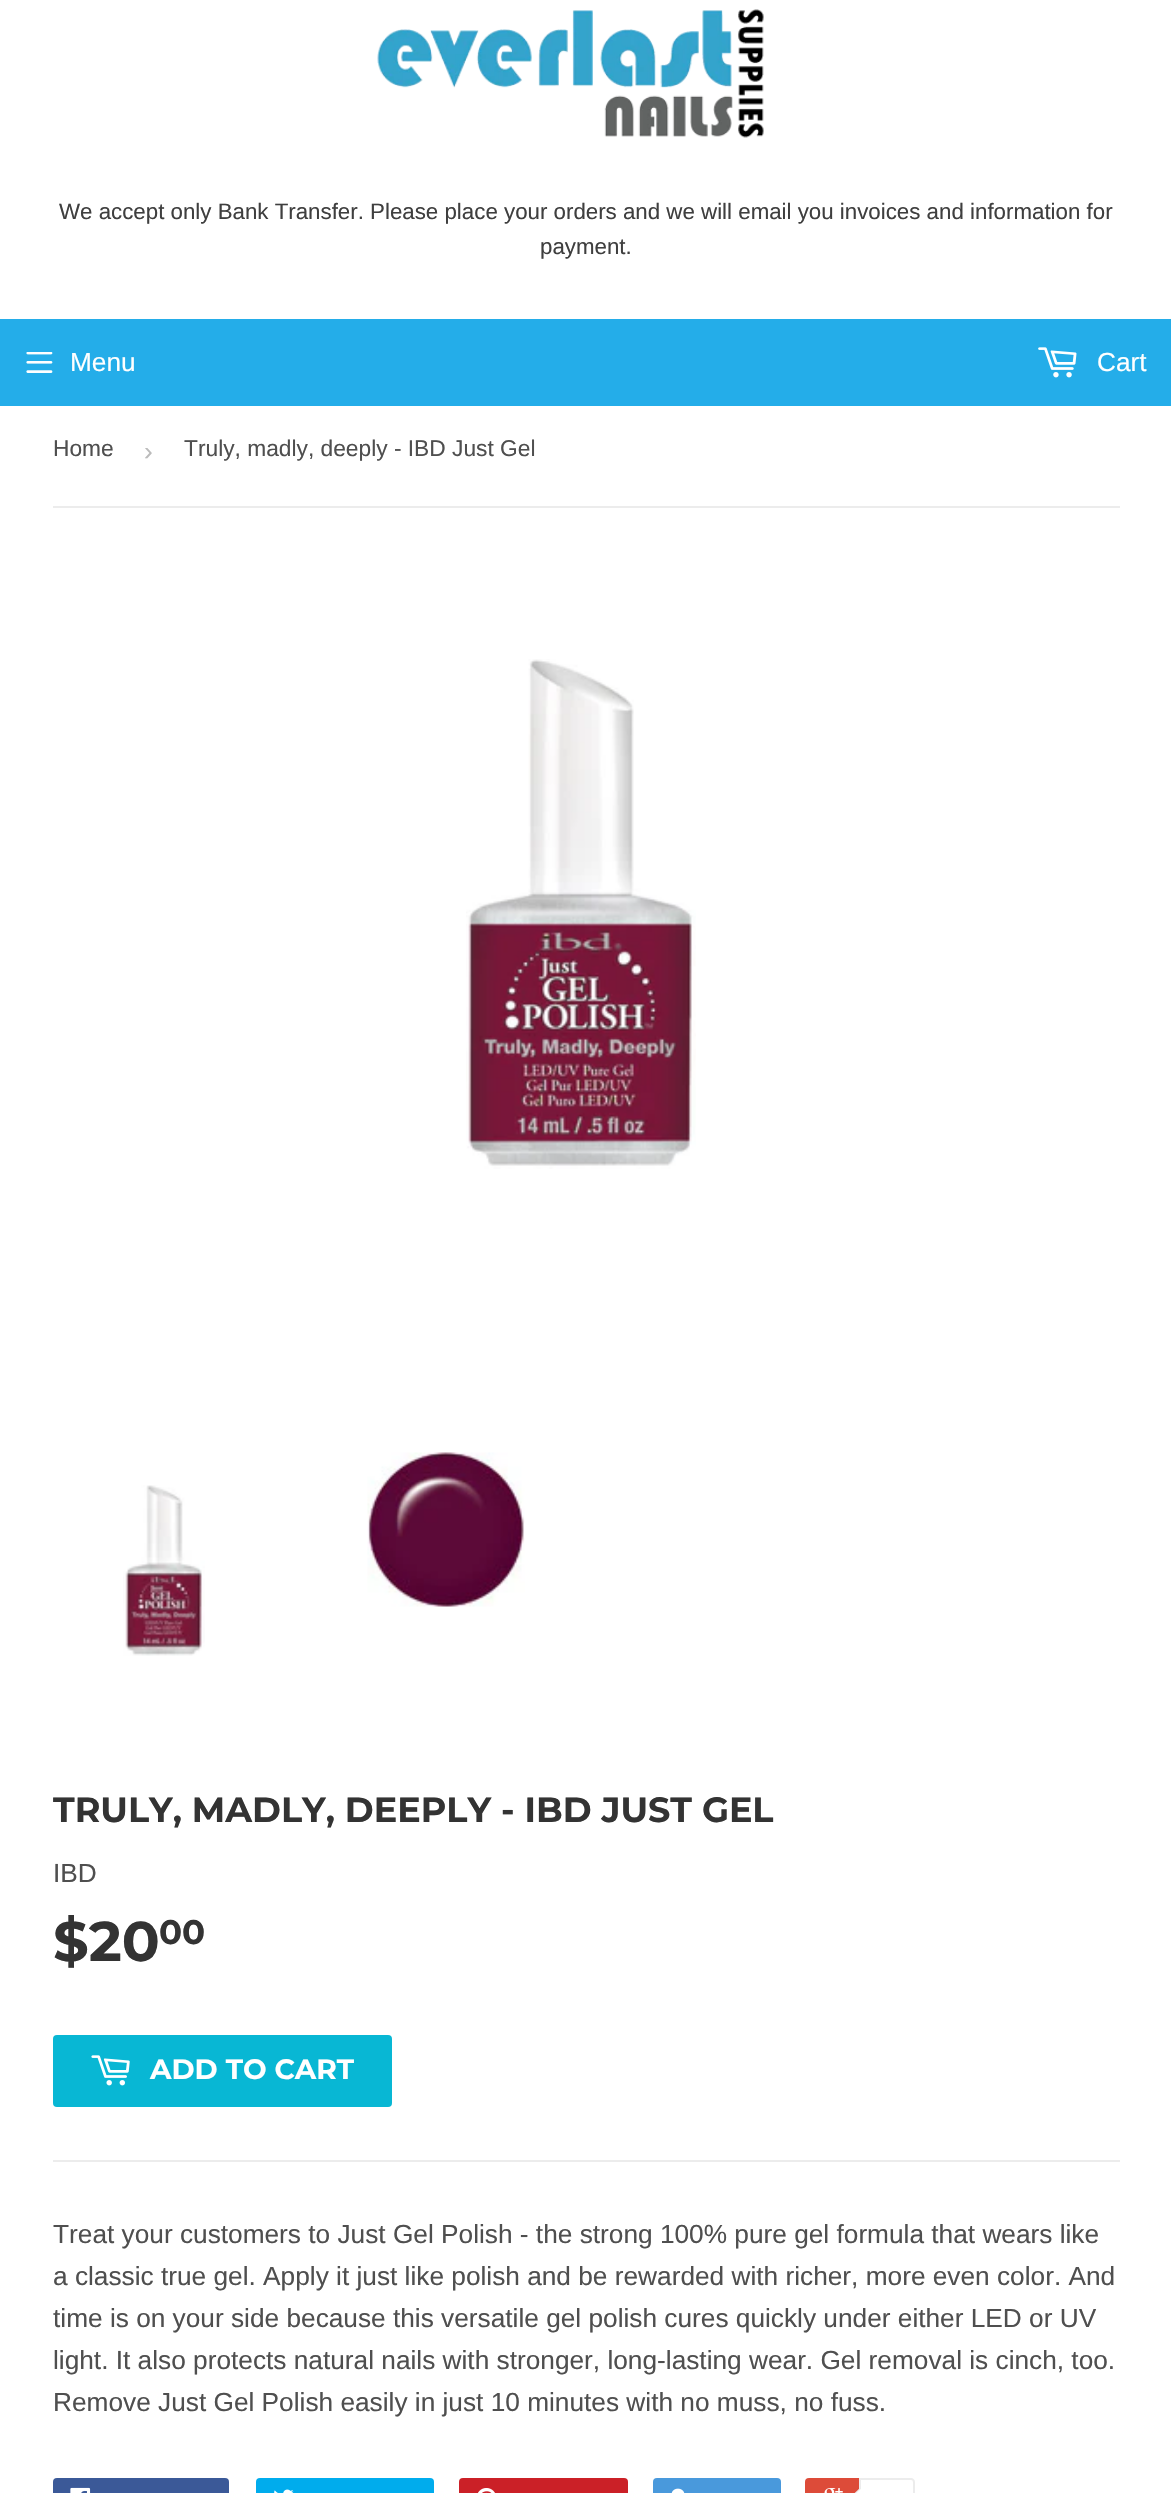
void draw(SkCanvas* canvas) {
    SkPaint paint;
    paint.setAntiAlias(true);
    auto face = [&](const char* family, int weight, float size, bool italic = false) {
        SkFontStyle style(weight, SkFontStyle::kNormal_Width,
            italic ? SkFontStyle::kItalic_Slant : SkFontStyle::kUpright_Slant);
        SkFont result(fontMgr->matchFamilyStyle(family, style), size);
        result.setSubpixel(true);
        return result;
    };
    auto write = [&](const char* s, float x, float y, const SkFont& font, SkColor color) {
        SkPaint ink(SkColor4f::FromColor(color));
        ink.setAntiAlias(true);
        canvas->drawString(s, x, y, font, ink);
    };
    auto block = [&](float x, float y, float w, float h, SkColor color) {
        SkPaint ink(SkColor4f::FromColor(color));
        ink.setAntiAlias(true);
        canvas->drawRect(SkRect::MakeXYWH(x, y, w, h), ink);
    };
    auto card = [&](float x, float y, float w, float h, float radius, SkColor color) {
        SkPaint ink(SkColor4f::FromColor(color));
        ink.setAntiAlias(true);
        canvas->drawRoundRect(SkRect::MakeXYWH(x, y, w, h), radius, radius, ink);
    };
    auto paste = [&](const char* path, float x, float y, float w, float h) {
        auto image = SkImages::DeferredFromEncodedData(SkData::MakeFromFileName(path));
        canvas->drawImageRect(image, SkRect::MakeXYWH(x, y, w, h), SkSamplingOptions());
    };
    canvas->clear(SK_ColorWHITE);
    paste("pic1.png", 377, 9, 387, 129);
    auto kFont1 = face("Liberation Sans", 400, 22.3f);
    write("We accept only Bank Transfer. Please place your orders and we will email you invoices and information for", 59, 219, kFont1, SkColorSetRGB(63, 63, 63));
    write("payment.", 540, 254, kFont1, SkColorSetRGB(63, 63, 63));
    block(0, 319, 1171, 87, SkColorSetRGB(36, 173, 233));
    paste("pic2.png", 26, 352, 27, 21);
    auto kFont2 = face("Liberation Sans", 400, 26.25f);
    write("Menu", 70, 371, kFont2, SK_ColorWHITE);
    paste("pic3.png", 1038, 347, 39, 31);
    write("Cart", 1097, 371, kFont2, SK_ColorWHITE);
    block(53, 506, 1067, 2, SkColorSetRGB(236, 236, 236));
    auto kFont3 = face("Liberation Sans", 400, 22.75f);
    write("Home", 53, 456, kFont3, SkColorSetRGB(79, 79, 79));
    write("›", 144, 460, kFont2, SkColorSetRGB(187, 187, 187));
    write("Truly, madly, deeply - IBD Just Gel", 184, 456, kFont3, SkColorSetRGB(79, 79, 79));
    paste("pic4.png", 466, 659, 230, 510);
    paste("pic5.png", 123, 1485, 82, 171);
    paste("pic6.png", 367, 1452, 158, 155);
    auto kFont4 = face("Montserrat", 100, 35);
    write("TRULY, MADLY, DEEPLY - IBD JUST GEL", 53, 1822, kFont4, SkColorSetRGB(51, 51, 51));
    write("IBD", 53, 1882, kFont2, SkColorSetRGB(79, 79, 79));
    auto kFont5 = face("Montserrat", 100, 56);
    write("$20", 53, 1961, kFont5, SkColorSetRGB(51, 51, 51));
    auto kFont6 = face("Montserrat", 100, 34);
    write("00", 159, 1944, kFont6, SkColorSetRGB(51, 51, 51));
    card(53, 2035, 339, 72, 4, SkColorSetRGB(8, 183, 212));
    paste("pic7.png", 91, 2055, 39, 31);
    auto kFont7 = face("Montserrat", 100, 28);
    write("ADD TO CART", 150, 2079, kFont7, SK_ColorWHITE);
    block(53, 2160, 1067, 2, SkColorSetRGB(236, 236, 236));
    write("Treat your customers to Just Gel Polish - the strong 100% pure gel formula that wears like", 53, 2243, kFont2, SkColorSetRGB(79, 79, 79));
    write("a classic true gel. Apply it just like polish and be rewarded with richer, more even color. And", 53, 2285, kFont2, SkColorSetRGB(79, 79, 79));
    write("time is on your side because this versatile gel polish cures quickly under either LED or UV", 53, 2327, kFont2, SkColorSetRGB(79, 79, 79));
    write("light. It also protects natural nails with stronger, long-lasting wear. Gel removal is cinch, too.", 53, 2369, kFont2, SkColorSetRGB(79, 79, 79));
    write("Remove Just Gel Polish easily in just 10 minutes with no muss, no fuss.", 53, 2411, kFont2, SkColorSetRGB(79, 79, 79));
    card(53, 2478, 176, 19, 4, SkColorSetRGB(59, 89, 152));
    paste("pic8.png", 70, 2487, 21, 6);
    card(256, 2478, 178, 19, 4, SkColorSetRGB(0, 172, 237));
    paste("pic9.png", 274, 2489, 20, 4);
    card(459, 2478, 169, 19, 4, SkColorSetRGB(203, 32, 39));
    paste("pic10.png", 478, 2488, 17, 5);
    card(653, 2478, 128, 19, 4, SkColorSetRGB(73, 153, 220));
    paste("pic11.png", 671, 2488, 14, 5);
    card(805, 2478, 107, 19, 4, SkColorSetRGB(221, 75, 57));
    paste("pic12.png", 824, 2488, 19, 5);
    paint.setColor(SK_ColorWHITE);
    canvas->drawPath(SkPathBuilder().moveTo(860, 2479).lineTo(911, 2479).cubicTo(912.5f, 2479, 914, 2480.5f, 914, 2482).lineTo(914, 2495).cubicTo(914, 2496.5f, 912.5f, 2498, 911, 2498).lineTo(860, 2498).close().detach(), paint);
    paint.setStyle(SkPaint::kStroke_Style);
    paint.setStrokeWidth(2);
    paint.setColor(SkColorSetRGB(236, 236, 236));
    canvas->drawPath(SkPathBuilder().moveTo(860, 2479).lineTo(911, 2479).cubicTo(912.5f, 2479, 914, 2480.5f, 914, 2482).lineTo(914, 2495).cubicTo(914, 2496.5f, 912.5f, 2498, 911, 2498).lineTo(860, 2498).close().detach(), paint);
    paint.setStyle(SkPaint::kFill_Style);
    canvas->drawPath(SkPathBuilder().moveTo(861, 2487).lineTo(861, 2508).lineTo(850.5f, 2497).close().detach(), paint);
    paint.setColor(SK_ColorWHITE);
    canvas->drawPath(SkPathBuilder().moveTo(863, 2487).lineTo(863, 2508).lineTo(852, 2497).close().detach(), paint);
}
